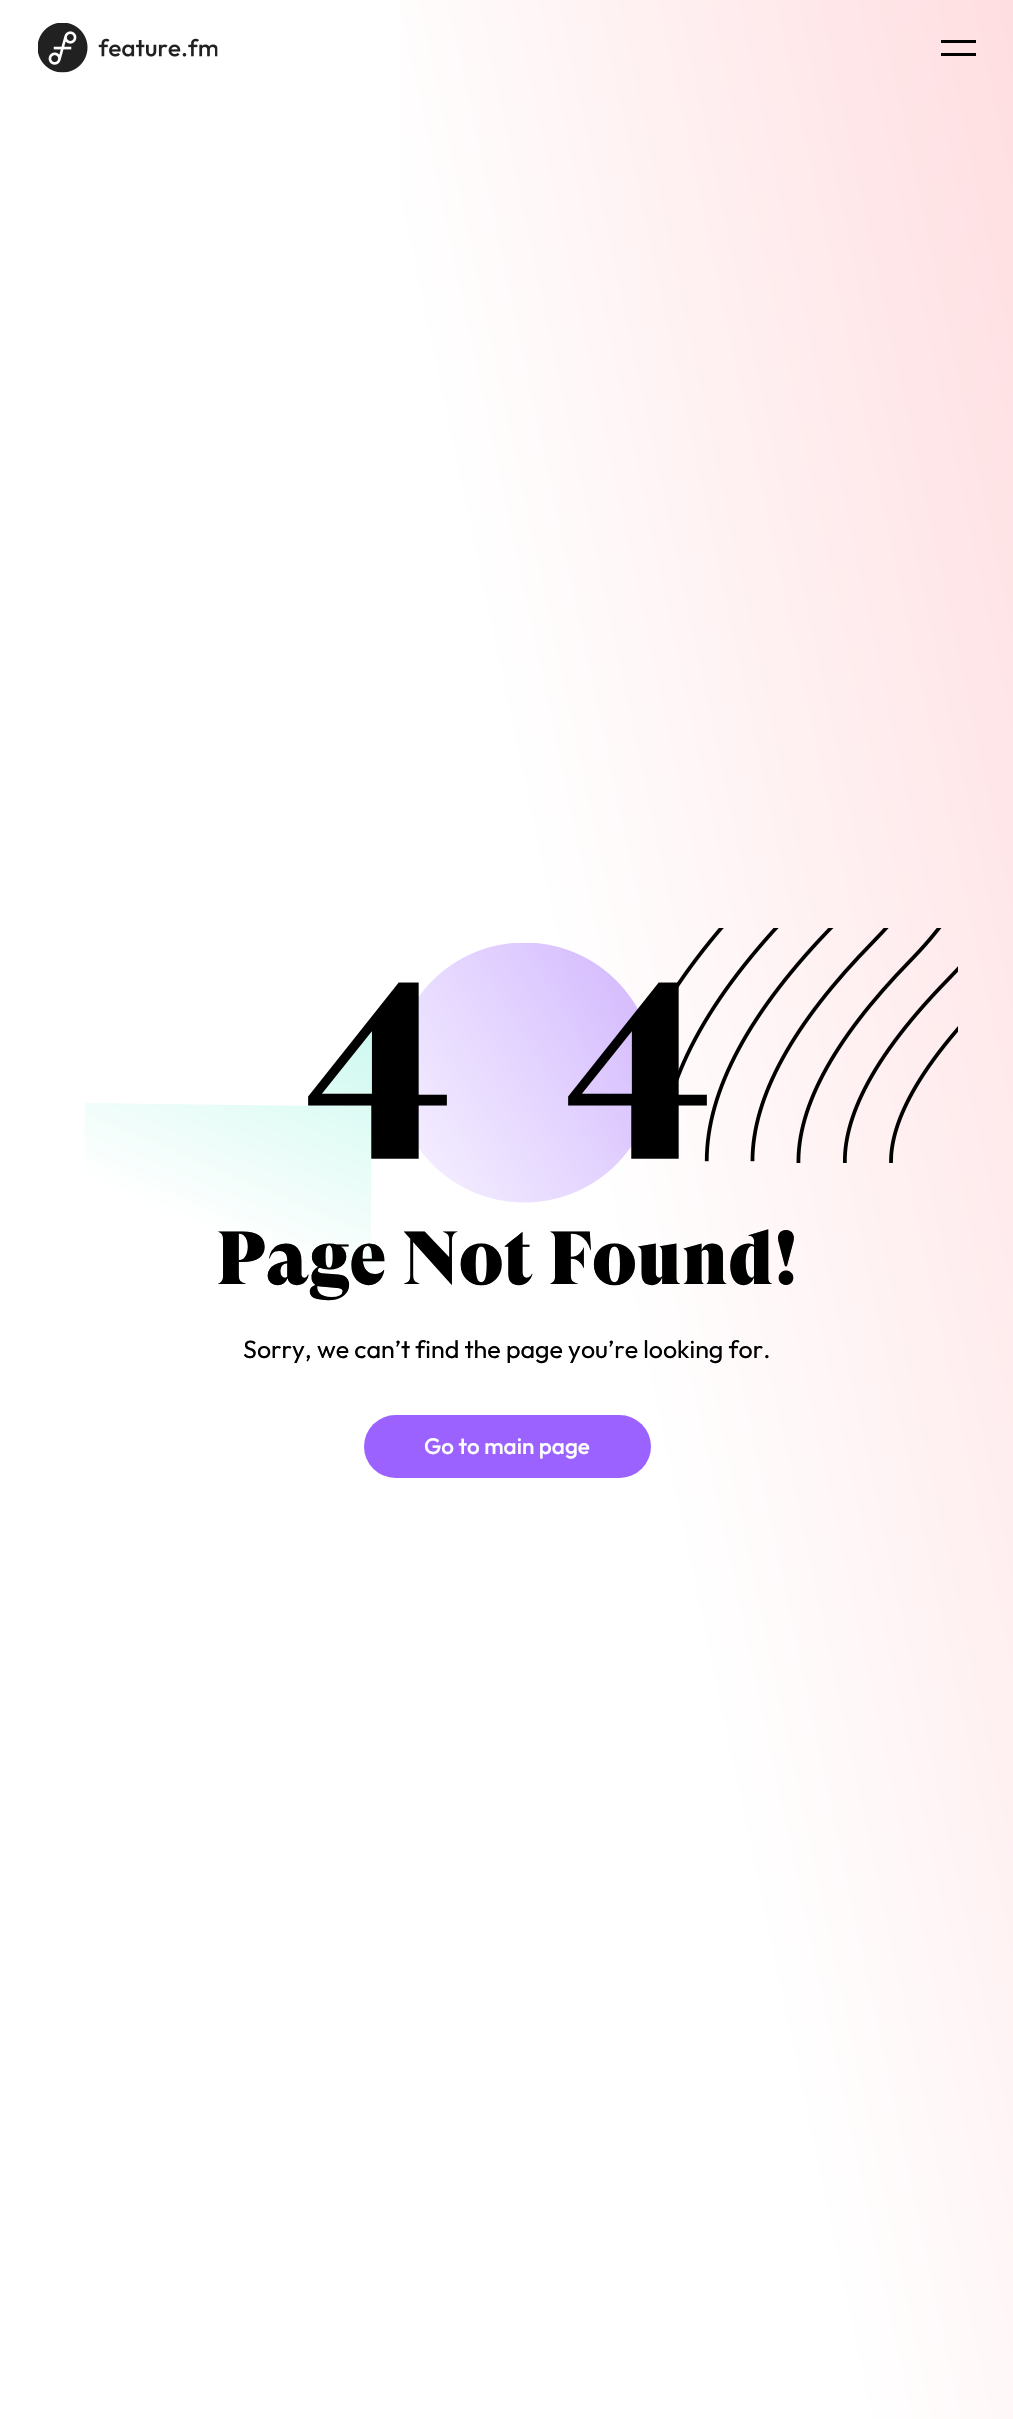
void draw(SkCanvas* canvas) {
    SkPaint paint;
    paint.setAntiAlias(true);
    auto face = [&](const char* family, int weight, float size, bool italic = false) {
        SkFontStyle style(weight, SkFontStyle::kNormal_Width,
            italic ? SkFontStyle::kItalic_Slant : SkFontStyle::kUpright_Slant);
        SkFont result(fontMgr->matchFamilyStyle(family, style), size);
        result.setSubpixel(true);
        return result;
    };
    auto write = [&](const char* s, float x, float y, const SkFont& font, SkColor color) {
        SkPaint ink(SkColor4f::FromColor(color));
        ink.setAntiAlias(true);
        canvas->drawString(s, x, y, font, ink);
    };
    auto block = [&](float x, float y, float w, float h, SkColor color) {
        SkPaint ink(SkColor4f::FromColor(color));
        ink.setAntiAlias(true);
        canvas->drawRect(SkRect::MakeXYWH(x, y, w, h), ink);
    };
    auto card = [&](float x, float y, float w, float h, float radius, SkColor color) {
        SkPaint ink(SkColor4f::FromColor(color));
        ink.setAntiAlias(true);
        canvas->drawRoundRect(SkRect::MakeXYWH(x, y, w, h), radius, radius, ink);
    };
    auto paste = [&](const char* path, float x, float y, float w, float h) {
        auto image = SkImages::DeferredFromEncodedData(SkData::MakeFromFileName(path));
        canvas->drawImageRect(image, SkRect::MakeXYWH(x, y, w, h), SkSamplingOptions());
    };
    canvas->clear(SK_ColorWHITE);
    paste("pic1.png", 38, 23, 180, 50);
    {
        const SkColor colors[] = {SkColorSetRGB(255, 221, 224), SK_ColorWHITE};
        const float stops[] = {0, 0.44f};
        const SkPoint ends[] = {{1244, 1022}, {-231, 1335}};
        paint.setShader(SkGradientShader::MakeLinear(ends, colors, stops, 2, SkTileMode::kClamp));
        paint.setAlpha(255);
    }
    canvas->drawRect(SkRect::MakeXYWH(399, 0, 614, 2419), paint);
    block(941, 40, 35, 3, SK_ColorBLACK);
    block(941, 53, 35, 3, SK_ColorBLACK);
    {
        const SkColor colors[] = {SK_ColorWHITE, SkColorSetRGB(205, 249, 239)};
        const float stops[] = {0.26f, 1};
        const SkPoint ends[] = {{160, 1309}, {294, 992}};
        paint.setShader(SkGradientShader::MakeLinear(ends, colors, stops, 2, SkTileMode::kClamp));
        paint.setAlpha(255);
    }
    canvas->drawPath(SkPathBuilder().moveTo(85, 1103).lineTo(310, 1106).lineTo(371, 1026).lineTo(371, 1276).lineTo(83, 1276).lineTo(83, 1209).close().detach(), paint);
    paste("pic2.png", 308, 943, 399, 260);
    paste("pic3.png", 677, 928, 281, 235);
    auto kFont1 = face("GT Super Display", 900, 75);
    write("Page Not Found!", 216, 1284, kFont1, SK_ColorBLACK);
    auto kFont2 = face("Outfit", 400, 25);
    write("Sorry, we can’t find the page you’re looking for.", 243, 1358, kFont2, SK_ColorBLACK);
    card(364, 1415, 287, 63, 31.5f, SkColorSetRGB(155, 98, 255));
    auto kFont3 = face("Outfit", 500, 22.5f);
    write("Go to main page", 424, 1454, kFont3, SK_ColorWHITE);
}
